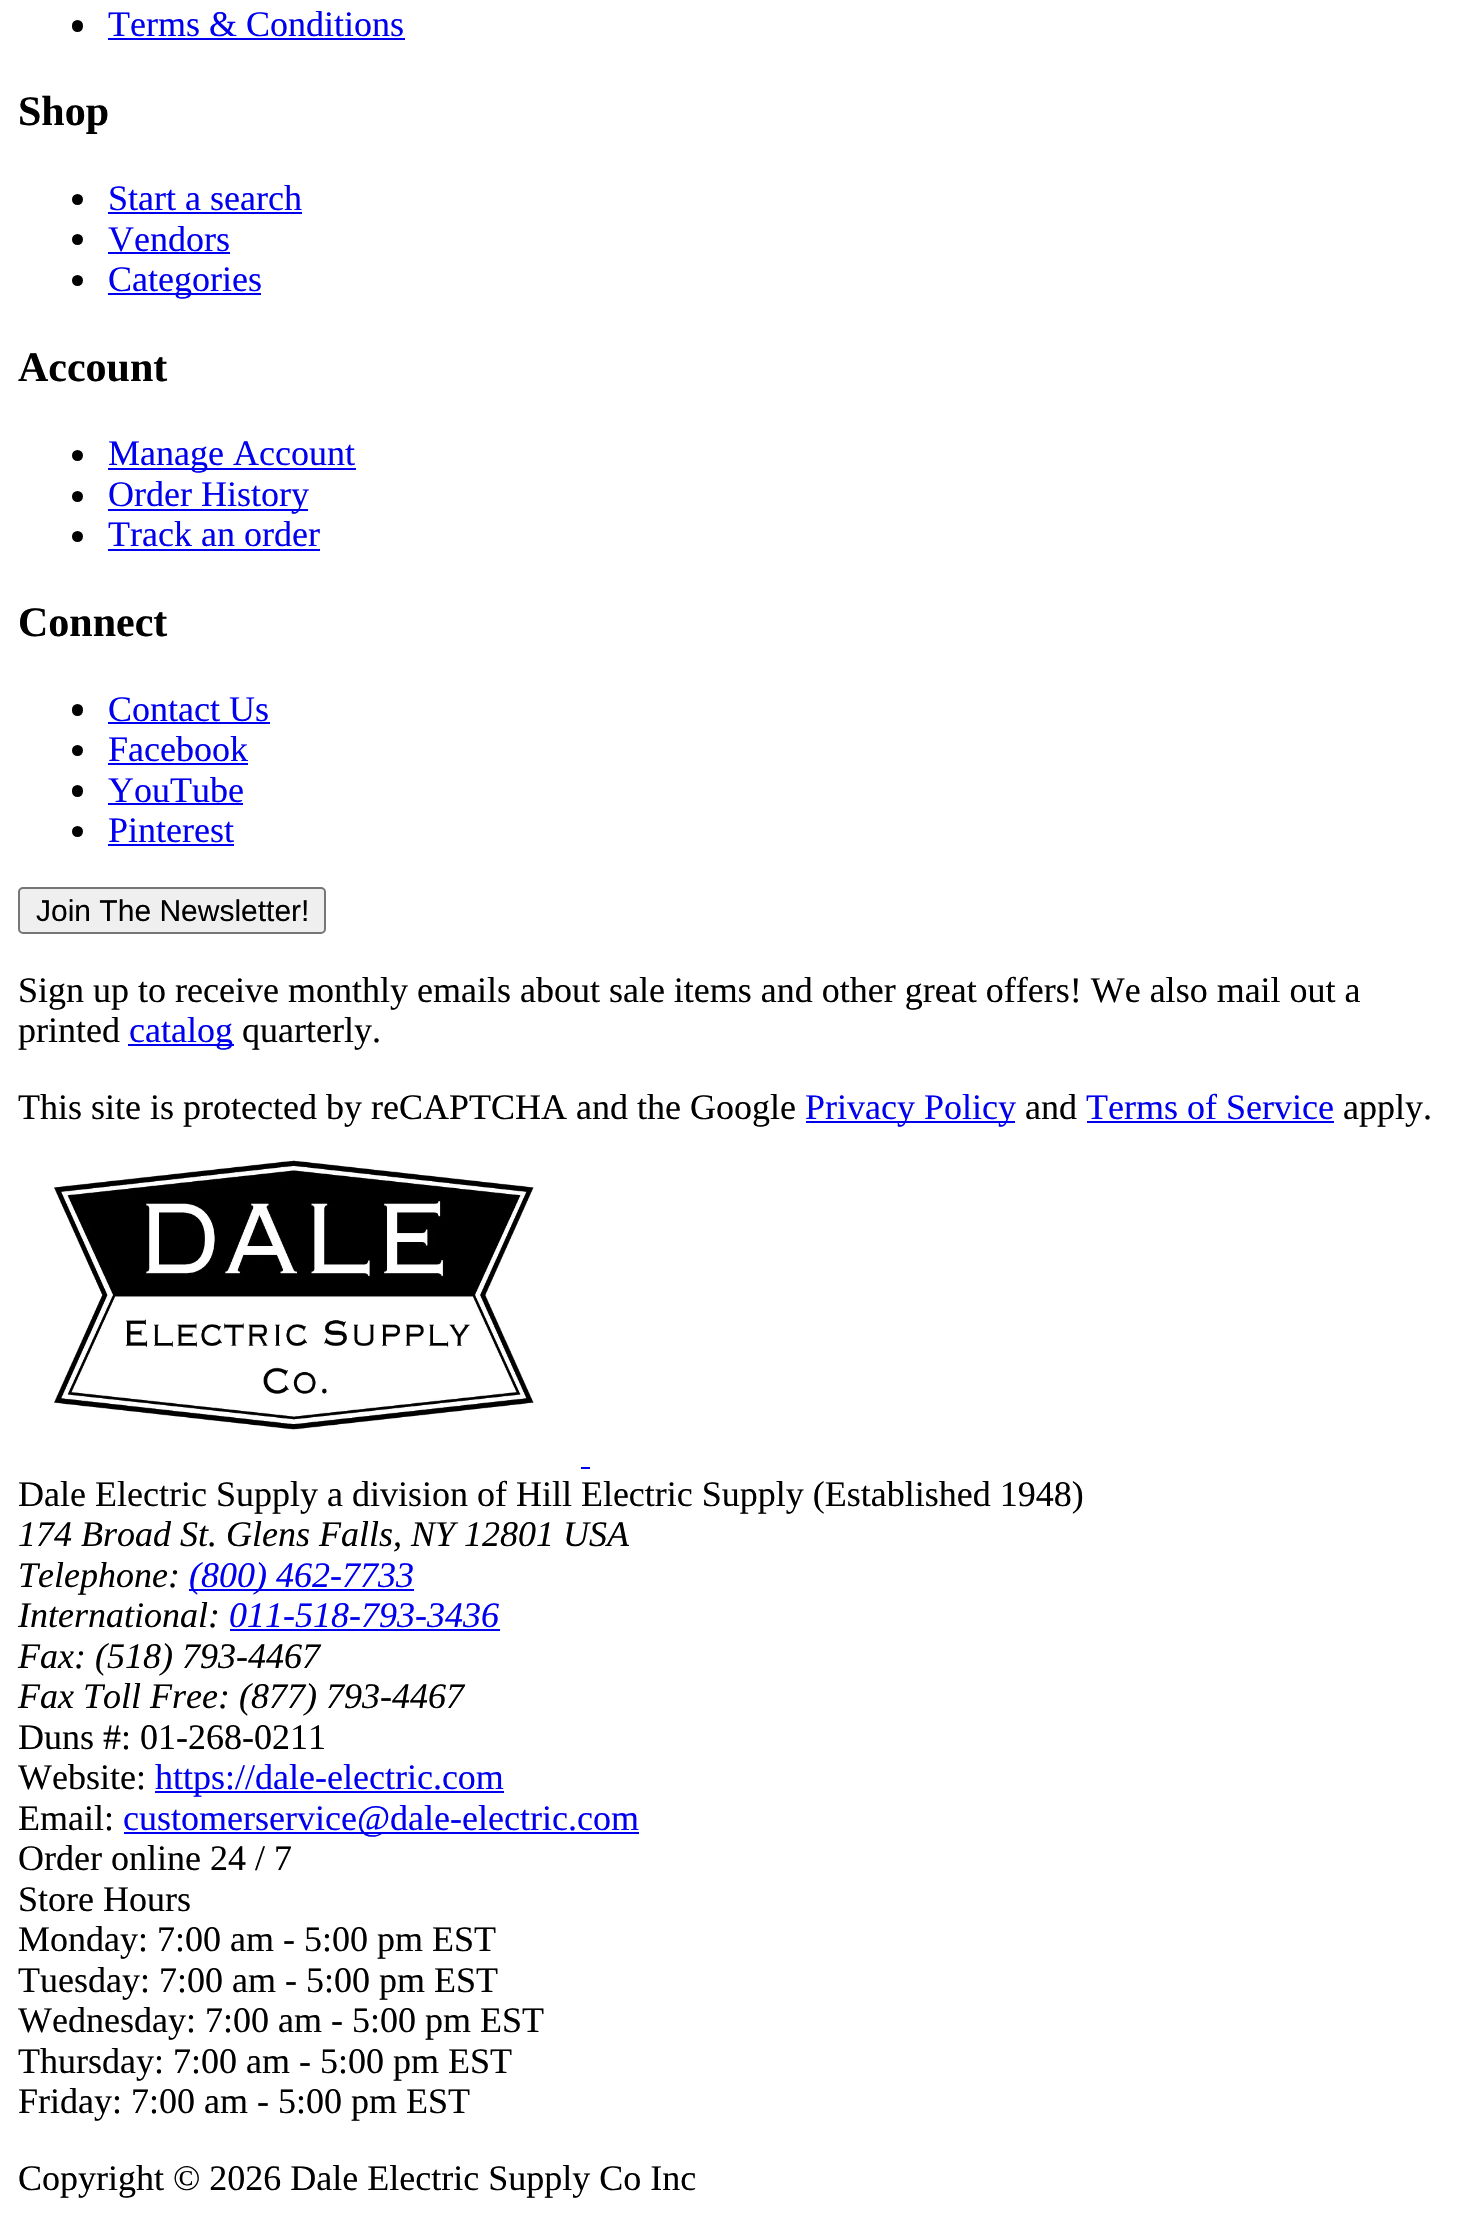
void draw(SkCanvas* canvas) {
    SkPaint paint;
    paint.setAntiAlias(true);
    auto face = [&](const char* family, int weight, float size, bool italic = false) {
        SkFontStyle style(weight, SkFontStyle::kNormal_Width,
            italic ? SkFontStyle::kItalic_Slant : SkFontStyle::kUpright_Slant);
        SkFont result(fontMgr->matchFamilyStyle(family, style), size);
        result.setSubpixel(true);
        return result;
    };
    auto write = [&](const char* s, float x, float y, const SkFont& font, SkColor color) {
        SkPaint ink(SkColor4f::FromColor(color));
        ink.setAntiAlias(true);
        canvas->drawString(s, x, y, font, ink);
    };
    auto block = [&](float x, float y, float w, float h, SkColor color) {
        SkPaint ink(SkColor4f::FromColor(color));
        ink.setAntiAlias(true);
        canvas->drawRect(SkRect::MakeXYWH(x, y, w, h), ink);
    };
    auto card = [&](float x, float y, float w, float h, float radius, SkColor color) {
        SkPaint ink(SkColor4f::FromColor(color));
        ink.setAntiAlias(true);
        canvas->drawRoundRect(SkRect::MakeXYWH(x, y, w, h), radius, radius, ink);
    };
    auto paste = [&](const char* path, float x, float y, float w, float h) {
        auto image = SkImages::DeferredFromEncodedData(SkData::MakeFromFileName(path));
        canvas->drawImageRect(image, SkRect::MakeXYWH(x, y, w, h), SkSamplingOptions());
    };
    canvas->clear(SK_ColorWHITE);
    card(72, 20, 11, 12, 5.5f, SK_ColorBLACK);
    auto kFont1 = face("Liberation Serif", 400, 36);
    write("Terms & Conditions", 108, 36, kFont1, SkColorSetRGB(0, 0, 238));
    block(108, 38, 297, 2, SkColorSetRGB(0, 0, 238));
    auto kFont2 = face("Liberation Serif", 700, 42);
    write("Shop", 18, 125, kFont2, SK_ColorBLACK);
    paint.setColor(SK_ColorBLACK);
    canvas->drawCircle(77.5f, 199.5f, 5.5f, paint);
    write("Start a search", 108, 210, kFont1, SkColorSetRGB(0, 0, 238));
    block(108, 212, 194, 2, SkColorSetRGB(0, 0, 238));
    canvas->drawCircle(77.5f, 239.5f, 5.5f, paint);
    write("Vendors", 108, 251, kFont1, SkColorSetRGB(0, 0, 238));
    block(108, 252, 122, 2, SkColorSetRGB(0, 0, 238));
    canvas->drawCircle(77.5f, 280.5f, 5.5f, paint);
    block(108, 293, 153, 2, SkColorSetRGB(0, 0, 238));
    write("Categories", 108, 291, kFont1, SkColorSetRGB(0, 0, 238));
    write("Account", 18, 381, kFont2, SK_ColorBLACK);
    canvas->drawCircle(77.5f, 455.5f, 5.5f, paint);
    block(108, 468, 248, 2, SkColorSetRGB(0, 0, 238));
    write("Manage Account", 108, 465, kFont1, SkColorSetRGB(0, 0, 238));
    canvas->drawCircle(77.5f, 496.5f, 5.5f, paint);
    block(108, 509, 200, 2, SkColorSetRGB(0, 0, 238));
    write("Order History", 108, 506, kFont1, SkColorSetRGB(0, 0, 238));
    canvas->drawCircle(77.5f, 536.5f, 5.5f, paint);
    write("Track an order", 108, 546, kFont1, SkColorSetRGB(0, 0, 238));
    block(108, 549, 212, 2, SkColorSetRGB(0, 0, 238));
    write("Connect", 18, 636, kFont2, SK_ColorBLACK);
    card(72, 704, 11, 12, 5.5f, SK_ColorBLACK);
    write("Contact Us", 108, 721, kFont1, SkColorSetRGB(0, 0, 238));
    block(108, 722, 162, 2, SkColorSetRGB(0, 0, 238));
    canvas->drawCircle(77.5f, 750.5f, 5.5f, paint);
    write("Facebook", 108, 761, kFont1, SkColorSetRGB(0, 0, 238));
    block(108, 763, 140, 2, SkColorSetRGB(0, 0, 238));
    card(72, 785, 11, 12, 5.5f, SK_ColorBLACK);
    write("YouTube", 108, 802, kFont1, SkColorSetRGB(0, 0, 238));
    block(108, 803, 135, 2, SkColorSetRGB(0, 0, 238));
    canvas->drawCircle(77.5f, 831.5f, 5.5f, paint);
    write("Pinterest", 108, 842, kFont1, SkColorSetRGB(0, 0, 238));
    block(108, 844, 126, 2, SkColorSetRGB(0, 0, 238));
    paint.setColor(SkColorSetRGB(239, 239, 239));
    canvas->drawRoundRect(SkRect::MakeXYWH(19, 888, 306, 45), 4, 4, paint);
    paint.setStyle(SkPaint::kStroke_Style);
    paint.setStrokeWidth(2);
    paint.setColor(SkColorSetRGB(118, 118, 118));
    canvas->drawRoundRect(SkRect::MakeXYWH(19, 888, 306, 45), 4, 4, paint);
    auto kFont3 = face("Liberation Sans", 400, 30);
    write("Join The Newsletter!", 36, 921, kFont3, SK_ColorBLACK);
    write("Sign up to receive monthly emails about sale items and other great offers! We also mail out a", 18, 1002, kFont1, SK_ColorBLACK);
    write("printed", 18, 1042, kFont1, SK_ColorBLACK);
    block(128, 1044, 106, 2, SkColorSetRGB(0, 0, 238));
    write("catalog", 129, 1042, kFont1, SkColorSetRGB(0, 0, 238));
    write("quarterly.", 242, 1042, kFont1, SK_ColorBLACK);
    write("This site is protected by reCAPTCHA and the Google", 18, 1119, kFont1, SK_ColorBLACK);
    block(806, 1121, 209, 2, SkColorSetRGB(0, 0, 238));
    write("Privacy Policy", 805, 1119, kFont1, SkColorSetRGB(0, 0, 238));
    write("and", 1025, 1119, kFont1, SK_ColorBLACK);
    write("Terms of Service", 1086, 1119, kFont1, SkColorSetRGB(0, 0, 238));
    block(1087, 1121, 247, 2, SkColorSetRGB(0, 0, 238));
    write("apply.", 1343, 1119, kFont1, SK_ColorBLACK);
    paste("pic1.png", 54, 1160, 480, 270);
    block(581, 1467, 9, 2, SkColorSetRGB(0, 0, 238));
    write("Dale Electric Supply a division of Hill Electric Supply (Established 1948)", 18, 1506, kFont1, SK_ColorBLACK);
    auto kFont4 = face("Liberation Serif", 400, 36, true);
    write("174 Broad St. Glens Falls, NY 12801 USA", 18, 1546, kFont4, SK_ColorBLACK);
    write("Telephone:", 18, 1587, kFont4, SK_ColorBLACK);
    block(189, 1589, 225, 2, SkColorSetRGB(0, 0, 238));
    write("(800) 462-7733", 189, 1587, kFont4, SkColorSetRGB(0, 0, 238));
    write("International:", 18, 1627, kFont4, SK_ColorBLACK);
    write("011-518-793-3436", 229, 1627, kFont4, SkColorSetRGB(0, 0, 238));
    block(230, 1629, 270, 2, SkColorSetRGB(0, 0, 238));
    write("Fax: (518) 793-4467", 18, 1668, kFont4, SK_ColorBLACK);
    write("Fax Toll Free: (877) 793-4467", 18, 1708, kFont4, SK_ColorBLACK);
    write("Duns #: 01-268-0211", 18, 1749, kFont1, SK_ColorBLACK);
    write("Website:", 18, 1789, kFont1, SK_ColorBLACK);
    block(155, 1791, 349, 2, SkColorSetRGB(0, 0, 238));
    write("https://dale-electric.com", 155, 1789, kFont1, SkColorSetRGB(0, 0, 238));
    write("Email:", 18, 1830, kFont1, SK_ColorBLACK);
    block(124, 1832, 515, 2, SkColorSetRGB(0, 0, 238));
    write("customerservice@dale-electric.com", 123, 1830, kFont1, SkColorSetRGB(0, 0, 238));
    write("Order online 24 / 7", 18, 1870, kFont1, SK_ColorBLACK);
    write("Store Hours", 18, 1911, kFont1, SK_ColorBLACK);
    write("Monday: 7:00 am - 5:00 pm EST", 18, 1951, kFont1, SK_ColorBLACK);
    write("Tuesday: 7:00 am - 5:00 pm EST", 18, 1992, kFont1, SK_ColorBLACK);
    write("Wednesday: 7:00 am - 5:00 pm EST", 18, 2032, kFont1, SK_ColorBLACK);
    write("Thursday: 7:00 am - 5:00 pm EST", 18, 2073, kFont1, SK_ColorBLACK);
    write("Friday: 7:00 am - 5:00 pm EST", 18, 2113, kFont1, SK_ColorBLACK);
    write("Copyright © 2026 Dale Electric Supply Co Inc", 18, 2190, kFont1, SK_ColorBLACK);
}
